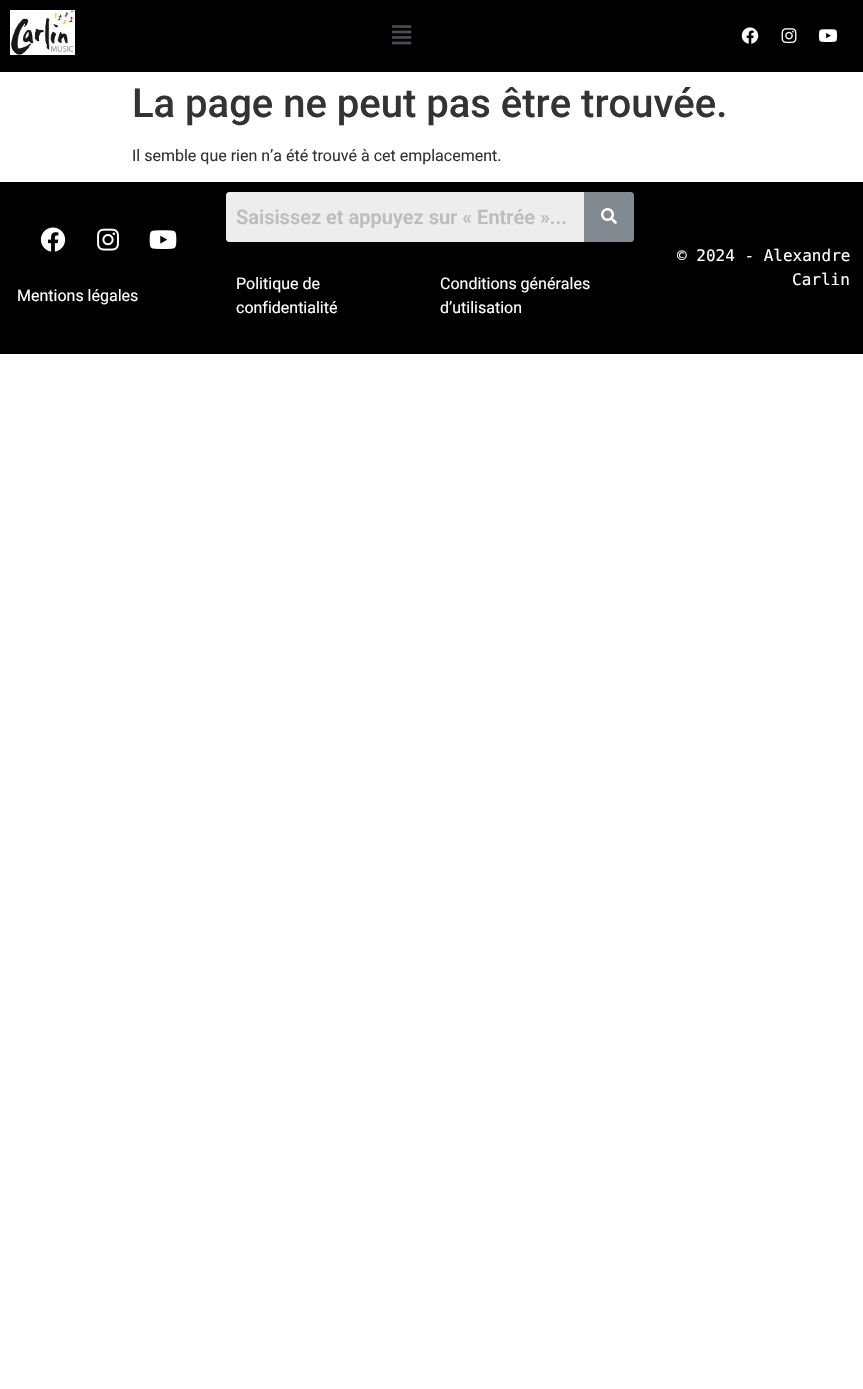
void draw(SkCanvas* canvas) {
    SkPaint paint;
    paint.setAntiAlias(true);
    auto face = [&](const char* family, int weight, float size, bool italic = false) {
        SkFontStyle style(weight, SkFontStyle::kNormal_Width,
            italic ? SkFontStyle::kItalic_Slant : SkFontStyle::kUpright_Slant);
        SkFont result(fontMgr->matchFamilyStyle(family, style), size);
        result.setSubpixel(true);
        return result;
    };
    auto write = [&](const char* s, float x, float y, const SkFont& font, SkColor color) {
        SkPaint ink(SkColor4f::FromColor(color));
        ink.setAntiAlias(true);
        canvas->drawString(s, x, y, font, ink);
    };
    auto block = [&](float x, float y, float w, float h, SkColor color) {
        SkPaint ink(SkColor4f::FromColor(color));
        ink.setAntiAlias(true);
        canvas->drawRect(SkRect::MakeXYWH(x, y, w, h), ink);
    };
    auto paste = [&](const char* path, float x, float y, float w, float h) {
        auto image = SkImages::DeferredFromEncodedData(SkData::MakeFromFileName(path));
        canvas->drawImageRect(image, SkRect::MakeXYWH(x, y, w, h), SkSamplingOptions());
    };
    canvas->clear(SK_ColorWHITE);
    block(0, 0, 863, 72, SK_ColorBLACK);
    paste("pic1.png", 10, 10, 65, 45);
    paste("pic2.png", 392, 25, 20, 20);
    paste("pic3.png", 741, 27, 18, 17);
    paste("pic4.png", 781, 28, 16, 16);
    paste("pic5.png", 818, 29, 20, 13);
    auto kFont1 = face("Roboto", 500, 40);
    write("La page ne peut pas être trouvée.", 132, 117, kFont1, SkColorSetRGB(51, 51, 51));
    auto kFont2 = face("Roboto", 400, 16);
    write("Il semble que rien n’a été trouvé à cet emplacement.", 132, 161, kFont2, SkColorSetRGB(51, 51, 51));
    block(0, 182, 863, 172, SK_ColorBLACK);
    paint.setColor(SkColorSetRGB(237, 237, 237));
    canvas->drawPath(SkPathBuilder().moveTo(229, 192).lineTo(584, 192).lineTo(584, 242).lineTo(229, 242).cubicTo(227.5f, 242, 226, 240.5f, 226, 239).lineTo(226, 195).cubicTo(226, 193.5f, 227.5f, 192, 229, 192).close().detach(), paint);
    auto kFont3 = face("Roboto", 600, 20);
    write("Saisissez et appuyez sur « Entrée »...", 236, 224, kFont3, SkColorSetRGB(189, 189, 189));
    paint.setColor(SkColorSetRGB(129, 138, 145));
    canvas->drawPath(SkPathBuilder().moveTo(584, 192).lineTo(631, 192).cubicTo(632.5f, 192, 634, 193.5f, 634, 195).lineTo(634, 239).cubicTo(634, 240.5f, 632.5f, 242, 631, 242).lineTo(584, 242).close().detach(), paint);
    paste("pic6.png", 601, 208, 16, 16);
    write("Politique de", 236, 289, kFont2, SK_ColorWHITE);
    write("confidentialité", 236, 313, kFont2, SK_ColorWHITE);
    write("Conditions générales", 440, 289, kFont2, SK_ColorWHITE);
    write("d’utilisation", 440, 313, kFont2, SK_ColorWHITE);
    auto kFont4 = face("DejaVu Sans Mono", 400, 16);
    write("© 2024 - Alexandre", 677, 261, kFont4, SK_ColorWHITE);
    write("Carlin", 792, 285, kFont4, SK_ColorWHITE);
    paste("pic7.png", 40, 227, 26, 25);
    paste("pic8.png", 97, 228, 22, 23);
    paste("pic9.png", 149, 230, 28, 19);
    write("Mentions légales", 17, 301, kFont2, SK_ColorWHITE);
}
